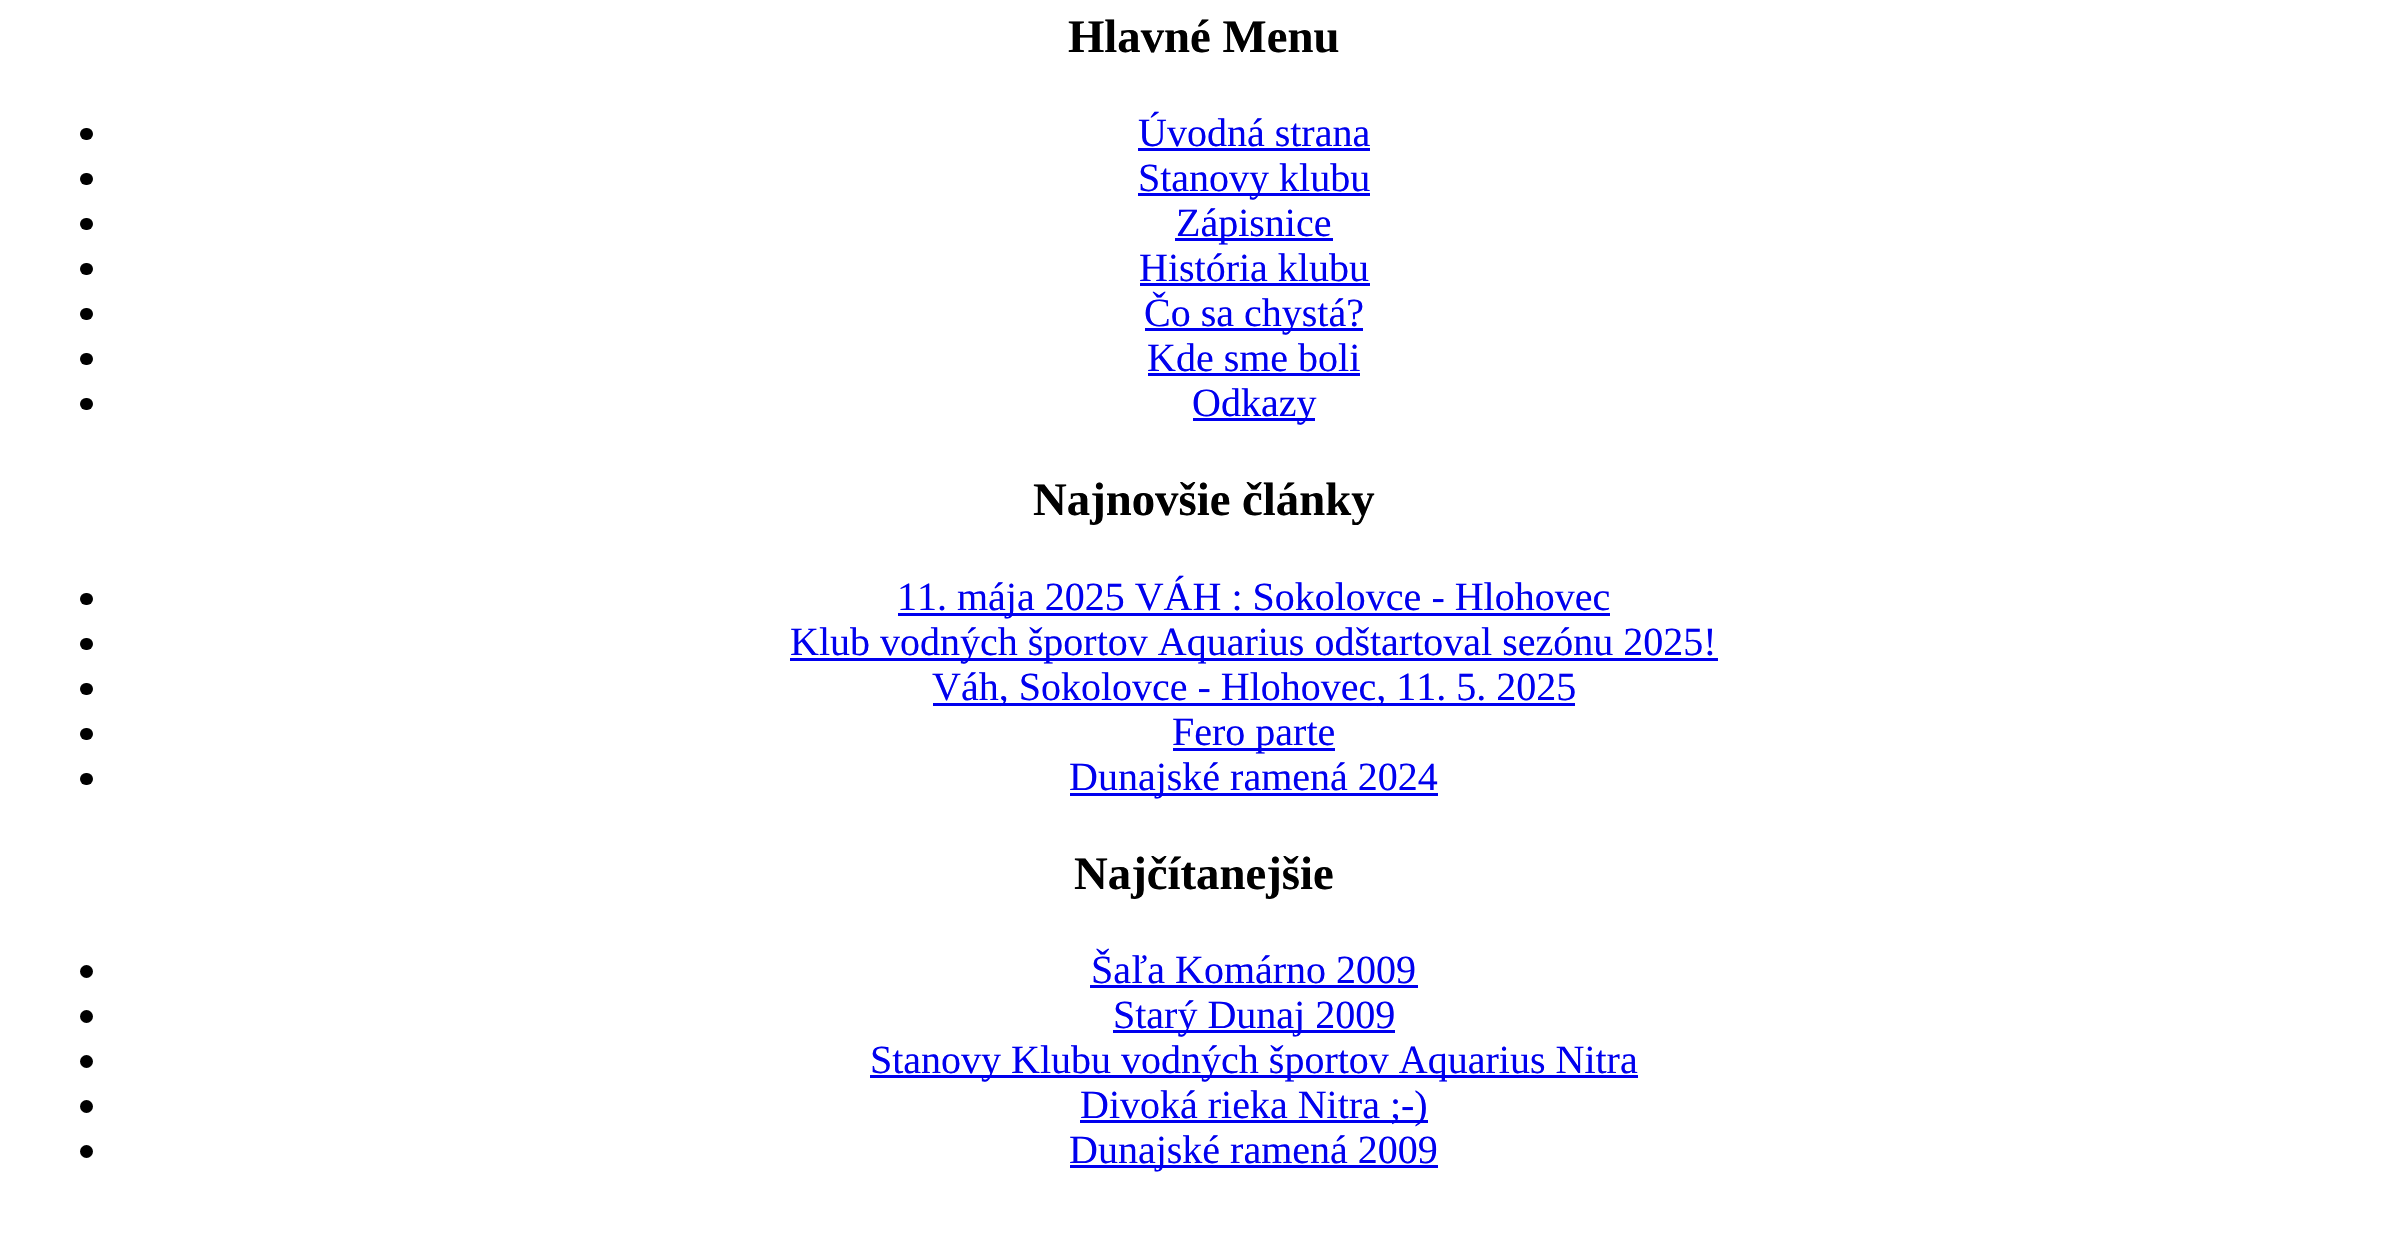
void draw(SkCanvas* canvas) {
    SkPaint paint;
    paint.setAntiAlias(true);
    auto face = [&](const char* family, int weight, float size, bool italic = false) {
        SkFontStyle style(weight, SkFontStyle::kNormal_Width,
            italic ? SkFontStyle::kItalic_Slant : SkFontStyle::kUpright_Slant);
        SkFont result(fontMgr->matchFamilyStyle(family, style), size);
        result.setSubpixel(true);
        return result;
    };
    auto write = [&](const char* s, float x, float y, const SkFont& font, SkColor color) {
        SkPaint ink(SkColor4f::FromColor(color));
        ink.setAntiAlias(true);
        canvas->drawString(s, x, y, font, ink);
    };
    auto block = [&](float x, float y, float w, float h, SkColor color) {
        SkPaint ink(SkColor4f::FromColor(color));
        ink.setAntiAlias(true);
        canvas->drawRect(SkRect::MakeXYWH(x, y, w, h), ink);
    };
    auto card = [&](float x, float y, float w, float h, float radius, SkColor color) {
        SkPaint ink(SkColor4f::FromColor(color));
        ink.setAntiAlias(true);
        canvas->drawRoundRect(SkRect::MakeXYWH(x, y, w, h), radius, radius, ink);
    };
    canvas->clear(SK_ColorWHITE);
    auto kFont1 = face("Liberation Serif", 700, 46.75f);
    write("Hlavné Menu", 1068, 52, kFont1, SK_ColorBLACK);
    card(80, 128, 13, 12, 6, SK_ColorBLACK);
    auto kFont2 = face("Liberation Serif", 400, 40);
    write("Úvodná strana", 1138, 146, kFont2, SkColorSetRGB(0, 0, 238));
    block(1138, 148, 232, 3, SkColorSetRGB(0, 0, 238));
    card(80, 173, 13, 12, 6, SK_ColorBLACK);
    block(1138, 193, 232, 3, SkColorSetRGB(0, 0, 238));
    write("Stanovy klubu", 1138, 191, kFont2, SkColorSetRGB(0, 0, 238));
    card(80, 218, 13, 12, 6, SK_ColorBLACK);
    block(1175, 238, 158, 3, SkColorSetRGB(0, 0, 238));
    write("Zápisnice", 1176, 236, kFont2, SkColorSetRGB(0, 0, 238));
    card(80, 263, 13, 12, 6, SK_ColorBLACK);
    write("História klubu", 1139, 281, kFont2, SkColorSetRGB(0, 0, 238));
    block(1140, 283, 230, 3, SkColorSetRGB(0, 0, 238));
    card(80, 308, 13, 12, 6, SK_ColorBLACK);
    block(1145, 328, 218, 3, SkColorSetRGB(0, 0, 238));
    write("Čo sa chystá?", 1144, 326, kFont2, SkColorSetRGB(0, 0, 238));
    card(80, 353, 13, 12, 6, SK_ColorBLACK);
    write("Kde sme boli", 1147, 371, kFont2, SkColorSetRGB(0, 0, 238));
    block(1148, 373, 212, 3, SkColorSetRGB(0, 0, 238));
    card(80, 398, 13, 12, 6, SK_ColorBLACK);
    block(1193, 418, 122, 3, SkColorSetRGB(0, 0, 238));
    write("Odkazy", 1192, 416, kFont2, SkColorSetRGB(0, 0, 238));
    write("Najnovšie články", 1033, 515, kFont1, SK_ColorBLACK);
    card(80, 593, 13, 12, 6, SK_ColorBLACK);
    block(898, 613, 712, 3, SkColorSetRGB(0, 0, 238));
    write("11. mája 2025 VÁH : Sokolovce - Hlohovec", 897, 610, kFont2, SkColorSetRGB(0, 0, 238));
    card(80, 638, 13, 12, 6, SK_ColorBLACK);
    block(790, 658, 928, 3, SkColorSetRGB(0, 0, 238));
    write("Klub vodných športov Aquarius odštartoval sezónu 2025!", 790, 655, kFont2, SkColorSetRGB(0, 0, 238));
    card(80, 683, 13, 12, 6, SK_ColorBLACK);
    block(933, 703, 642, 3, SkColorSetRGB(0, 0, 238));
    write("Váh, Sokolovce - Hlohovec, 11. 5. 2025", 932, 700, kFont2, SkColorSetRGB(0, 0, 238));
    card(80, 728, 13, 12, 6, SK_ColorBLACK);
    block(1173, 748, 162, 3, SkColorSetRGB(0, 0, 238));
    write("Fero parte", 1172, 745, kFont2, SkColorSetRGB(0, 0, 238));
    card(80, 773, 13, 12, 6, SK_ColorBLACK);
    block(1070, 793, 368, 3, SkColorSetRGB(0, 0, 238));
    write("Dunajské ramená 2024", 1069, 790, kFont2, SkColorSetRGB(0, 0, 238));
    write("Najčítanejšie", 1074, 889, kFont1, SK_ColorBLACK);
    paint.setColor(SK_ColorBLACK);
    canvas->drawCircle(86.5f, 971.5f, 6.5f, paint);
    write("Šaľa Komárno 2009", 1091, 983, kFont2, SkColorSetRGB(0, 0, 238));
    block(1090, 985, 328, 3, SkColorSetRGB(0, 0, 238));
    canvas->drawCircle(86.5f, 1016.5f, 6.5f, paint);
    block(1113, 1030, 282, 3, SkColorSetRGB(0, 0, 238));
    write("Starý Dunaj 2009", 1113, 1028, kFont2, SkColorSetRGB(0, 0, 238));
    canvas->drawCircle(86.5f, 1061.5f, 6.5f, paint);
    block(870, 1075, 768, 3, SkColorSetRGB(0, 0, 238));
    write("Stanovy Klubu vodných športov Aquarius Nitra", 870, 1073, kFont2, SkColorSetRGB(0, 0, 238));
    canvas->drawCircle(86.5f, 1106.5f, 6.5f, paint);
    block(1080, 1120, 348, 3, SkColorSetRGB(0, 0, 238));
    write("Divoká rieka Nitra ;-)", 1080, 1118, kFont2, SkColorSetRGB(0, 0, 238));
    canvas->drawCircle(86.5f, 1151.5f, 6.5f, paint);
    block(1070, 1165, 368, 3, SkColorSetRGB(0, 0, 238));
    write("Dunajské ramená 2009", 1069, 1163, kFont2, SkColorSetRGB(0, 0, 238));
}
